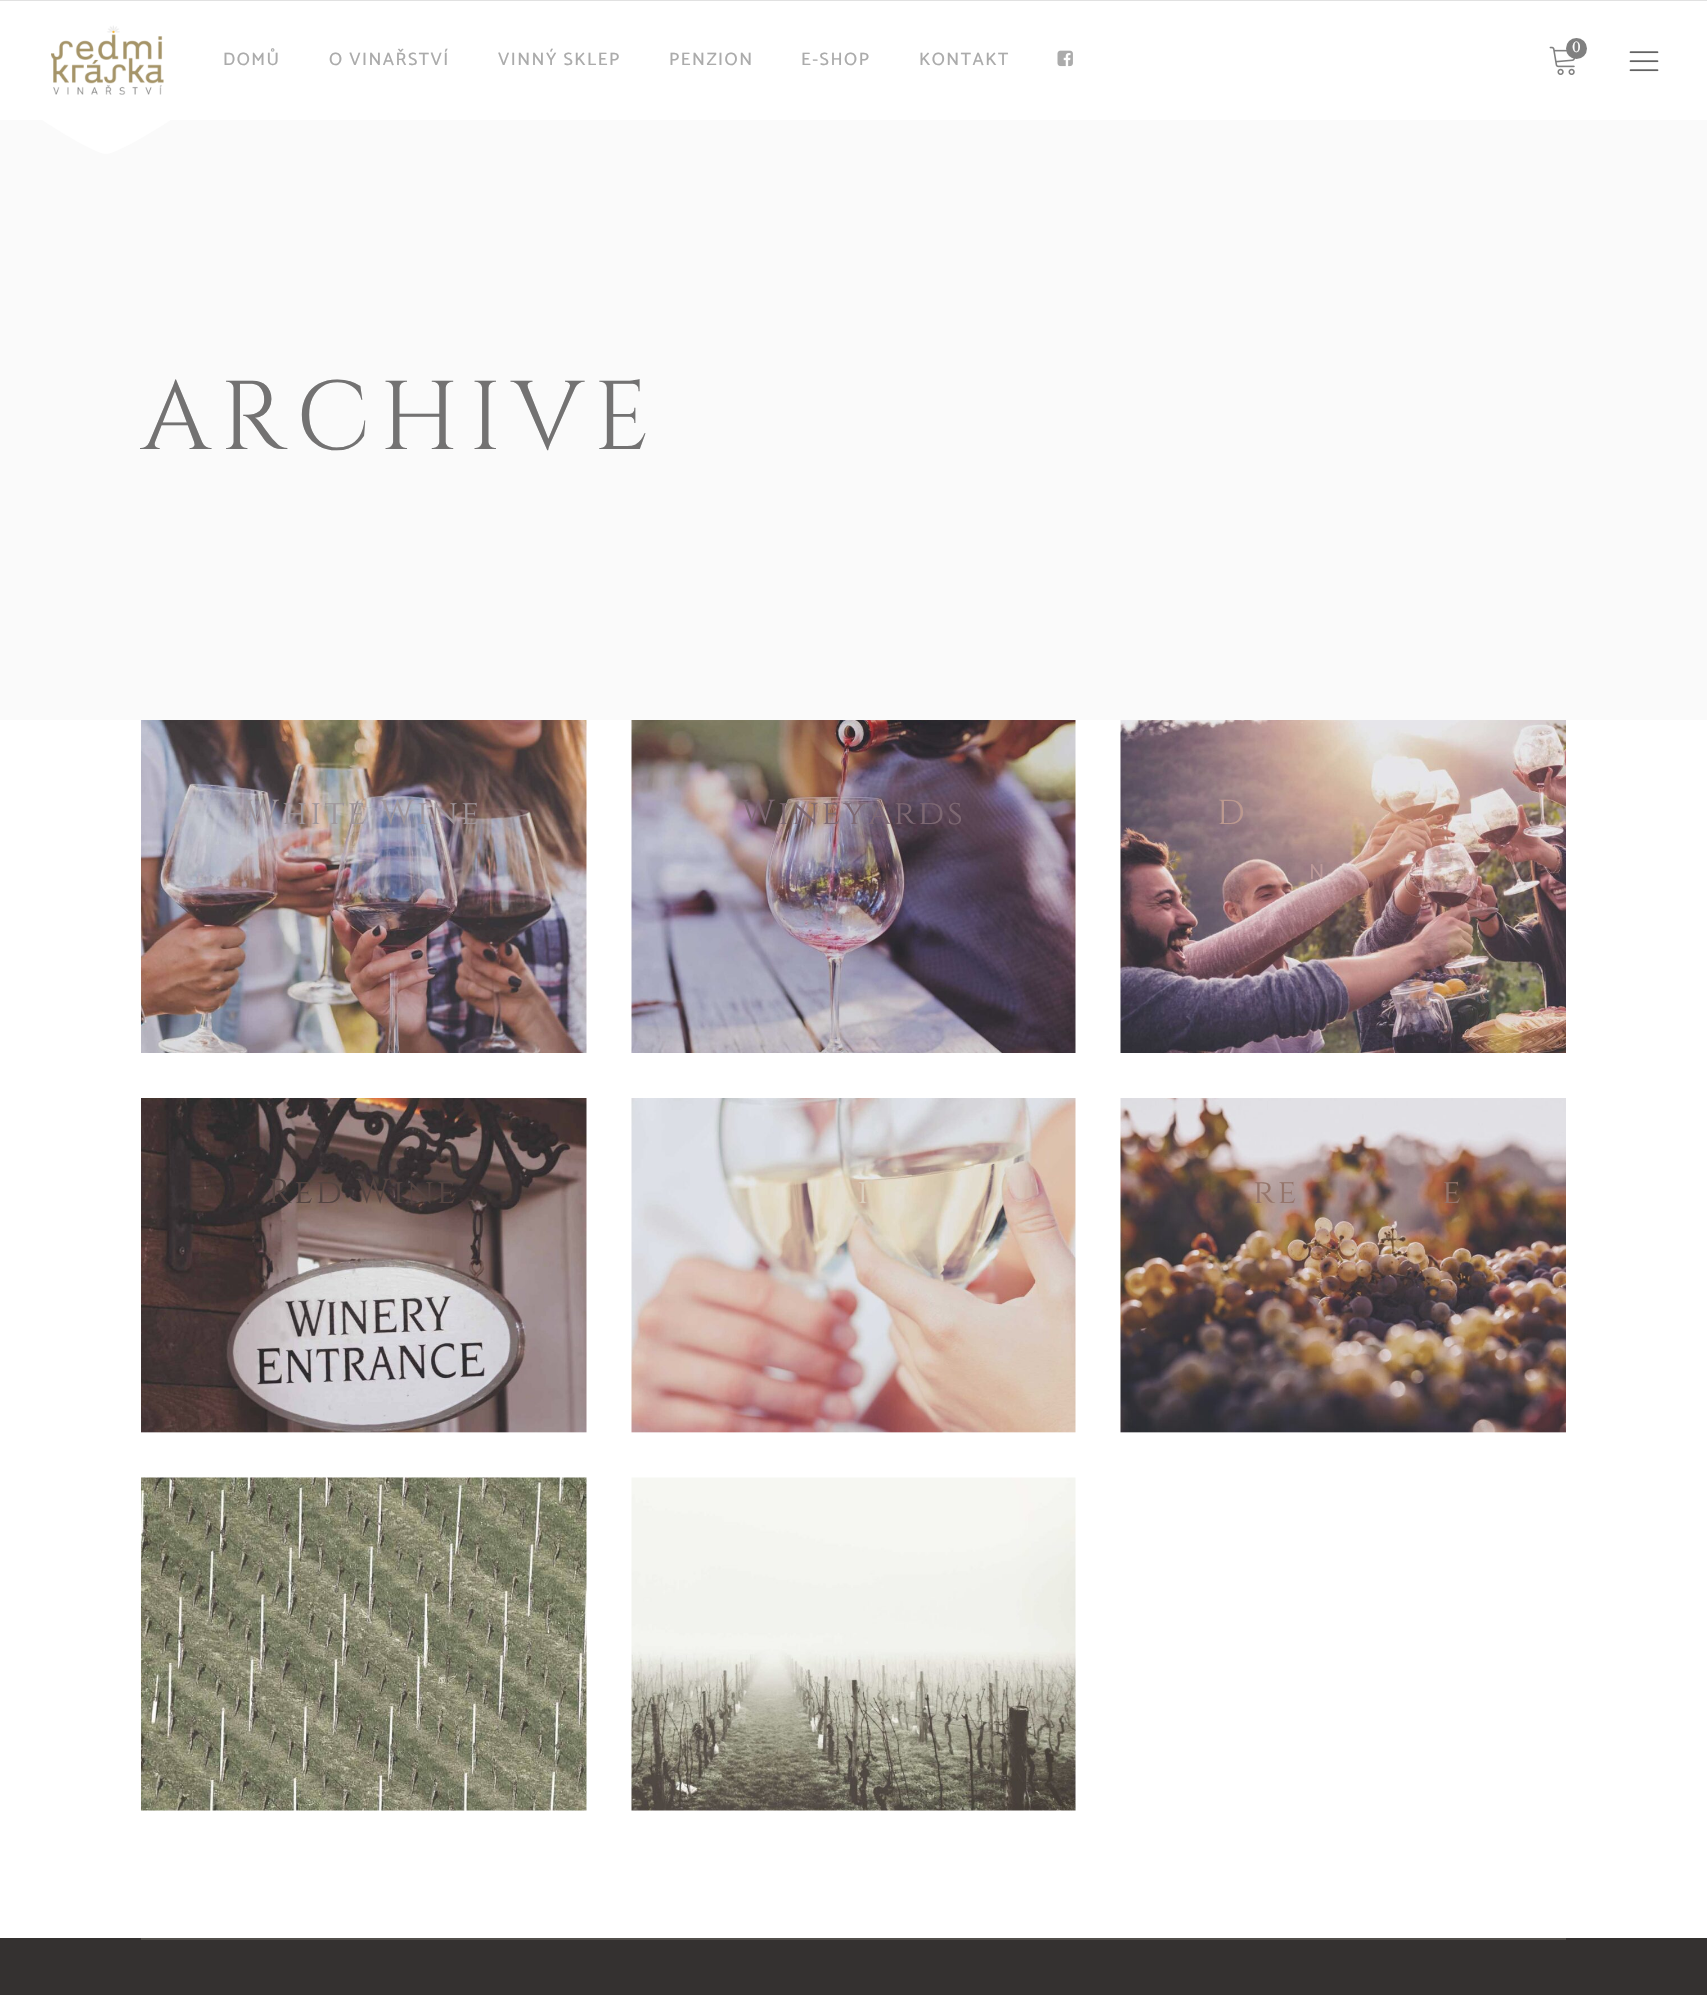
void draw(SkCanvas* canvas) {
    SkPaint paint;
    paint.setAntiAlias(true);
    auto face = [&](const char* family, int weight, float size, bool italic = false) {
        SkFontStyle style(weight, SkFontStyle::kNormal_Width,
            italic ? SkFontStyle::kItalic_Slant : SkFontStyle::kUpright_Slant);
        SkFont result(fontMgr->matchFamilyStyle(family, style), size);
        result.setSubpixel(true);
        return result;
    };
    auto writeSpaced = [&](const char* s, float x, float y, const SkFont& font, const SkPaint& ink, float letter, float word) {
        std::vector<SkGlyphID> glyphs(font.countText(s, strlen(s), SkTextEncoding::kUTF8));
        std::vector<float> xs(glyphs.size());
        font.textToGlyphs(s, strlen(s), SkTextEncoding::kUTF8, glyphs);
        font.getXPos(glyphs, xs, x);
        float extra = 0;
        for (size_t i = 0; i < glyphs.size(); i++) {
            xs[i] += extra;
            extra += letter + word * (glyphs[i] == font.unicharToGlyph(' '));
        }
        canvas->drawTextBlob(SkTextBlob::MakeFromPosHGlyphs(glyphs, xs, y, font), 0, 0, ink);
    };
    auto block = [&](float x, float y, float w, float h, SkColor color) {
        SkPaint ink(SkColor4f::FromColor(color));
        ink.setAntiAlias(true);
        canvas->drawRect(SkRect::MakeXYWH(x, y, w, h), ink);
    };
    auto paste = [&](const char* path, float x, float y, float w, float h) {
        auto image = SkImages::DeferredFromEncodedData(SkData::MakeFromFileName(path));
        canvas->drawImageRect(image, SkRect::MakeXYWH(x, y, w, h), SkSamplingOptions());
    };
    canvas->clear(SK_ColorWHITE);
    block(0, 0, 1707, 1, SkColorSetRGB(225, 225, 225));
    paste("pic1.png", 51, 25, 113, 70);
    block(0, 120, 1707, 600, SkColorSetRGB(250, 250, 250));
    canvas->save();
    canvas->clipRect(SkRect::MakeXYWH(39, 119, 135, 36));
    paint.setColor(SK_ColorWHITE);
    canvas->drawPath(SkPathBuilder().moveTo(39, 118).cubicTo(39, 118, 93, 154, 106, 154).cubicTo(119, 154, 174, 118, 174, 118).close().detach(), paint);
    canvas->restore();
    auto kFont1 = face("Catamaran", 500, 18);
    paint.setColor(SkColorSetRGB(171, 171, 171));
    writeSpaced("DOMŮ", 223, 65, kFont1, paint, 1.5f, 0);
    writeSpaced("O VINAŘSTVÍ", 329, 65, kFont1, paint, 1.5f, 0);
    writeSpaced("VINNÝ SKLEP", 498, 65, kFont1, paint, 1.5f, 0);
    writeSpaced("PENZION", 669, 65, kFont1, paint, 1.5f, 0);
    writeSpaced("E-SHOP", 801, 65, kFont1, paint, 1.5f, 0);
    writeSpaced("KONTAKT", 919, 65, kFont1, paint, 1.5f, 0);
    paste("pic2.png", 1057, 50, 16, 17);
    paste("pic3.png", 1549, 46, 27, 29);
    paint.setColor(SkColorSetRGB(128, 128, 128));
    canvas->drawCircle(1576.5f, 48.5f, 10.5f, paint);
    auto kFont2 = face("Old Standard TT", 400, 15);
    paint.setColor(SK_ColorWHITE);
    writeSpaced("0", 1572, 52, kFont2, paint, 1, 0);
    paste("pic4.png", 1629, 51, 30, 21);
    auto kFont3 = face("Cinzel", 400, 97.5f);
    paint.setColor(SkColorSetRGB(115, 114, 114));
    writeSpaced("ARCHIVE", 141, 449, kFont3, paint, 9.75f, 0);
    paste("pic5.png", 141, 720, 446, 333);
    auto kFont4 = face("Cinzel", 400, 34.5f);
    paint.setColor(SkColorSetRGB(158, 149, 154));
    writeSpaced("White Wine", 245, 824, kFont4, paint, 2.75f, 0);
    paste("pic6.png", 631, 720, 445, 333);
    paint.setColor(SkColorSetRGB(125, 104, 114));
    writeSpaced("Wineyards", 741, 824, kFont4, paint, 2.75f, 0);
    paste("pic7.png", 1120, 720, 446, 333);
    paint.setColor(SkColorSetRGB(188, 153, 143));
    writeSpaced("D", 1217, 824, kFont4, paint, 2.75f, 0);
    auto kFont5 = face("Catamaran", 400, 22);
    paint.setColor(SkColorSetRGB(189, 154, 153));
    writeSpaced("N", 1309, 879, kFont5, paint, 1, 0);
    paste("pic8.png", 141, 1098, 446, 335);
    paint.setColor(SkColorSetRGB(84, 69, 66));
    writeSpaced("Red Wine", 268, 1203, kFont4, paint, 2.75f, 0);
    paste("pic9.png", 631, 1098, 445, 335);
    paint.setColor(SkColorSetRGB(219, 208, 190));
    writeSpaced("i", 857, 1203, kFont4, paint, 2.75f, 0);
    paste("pic10.png", 1120, 1098, 446, 335);
    paint.setColor(SkColorSetRGB(149, 117, 107));
    writeSpaced("re", 1253, 1203, kFont4, paint, 2.75f, 0);
    writeSpaced("e", 1442, 1203, kFont4, paint, 2.75f, 0);
    paste("pic11.png", 141, 1477, 446, 334);
    paste("pic12.png", 631, 1477, 445, 334);
    block(0, 1938, 1707, 57, SkColorSetRGB(52, 49, 48));
    block(141, 1938, 1425, 2, SkColorSetRGB(83, 80, 76));
}
